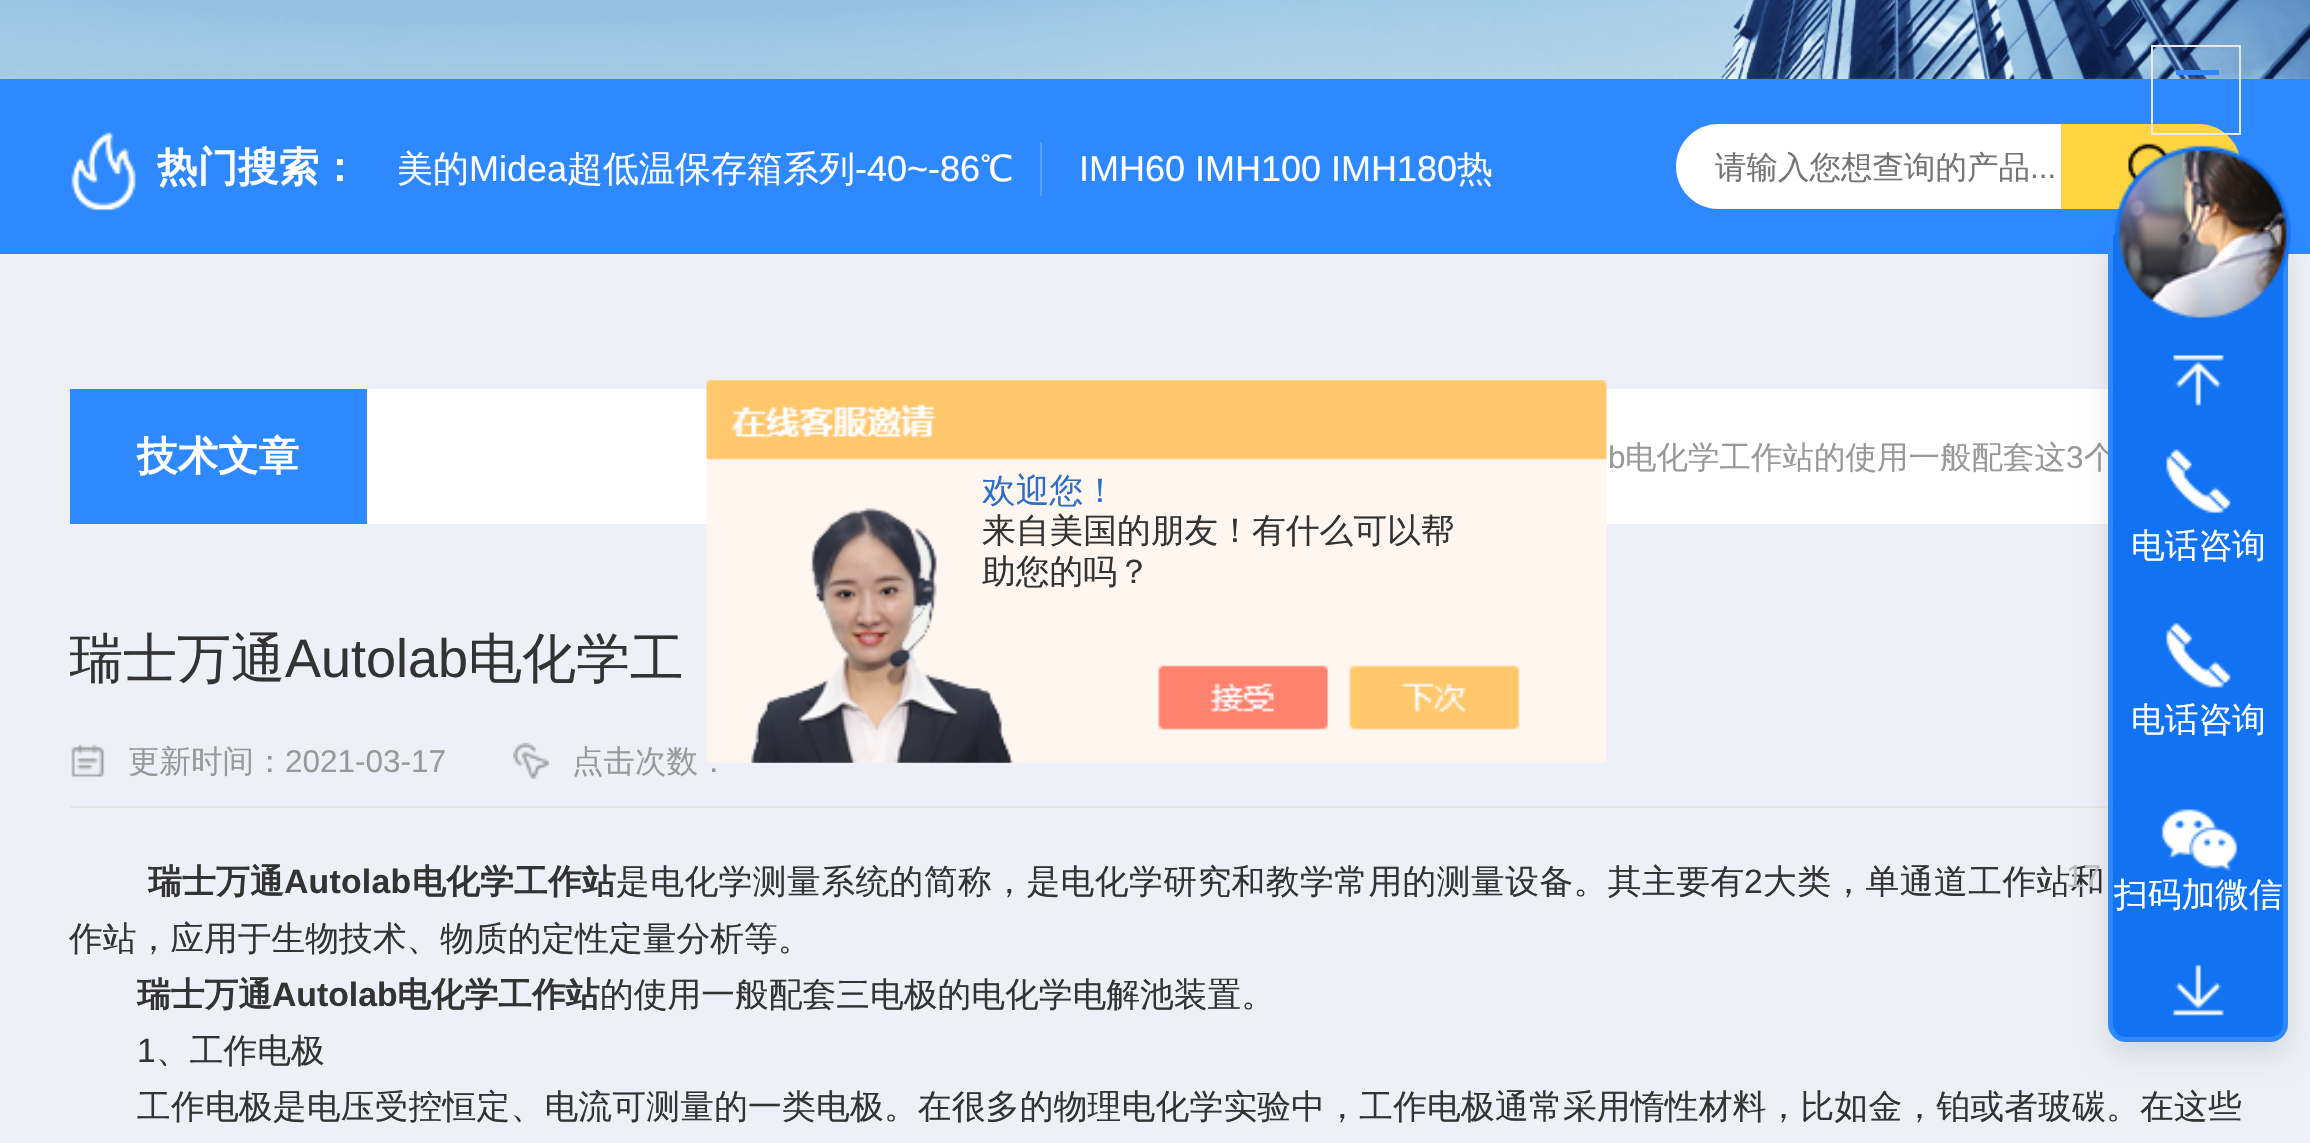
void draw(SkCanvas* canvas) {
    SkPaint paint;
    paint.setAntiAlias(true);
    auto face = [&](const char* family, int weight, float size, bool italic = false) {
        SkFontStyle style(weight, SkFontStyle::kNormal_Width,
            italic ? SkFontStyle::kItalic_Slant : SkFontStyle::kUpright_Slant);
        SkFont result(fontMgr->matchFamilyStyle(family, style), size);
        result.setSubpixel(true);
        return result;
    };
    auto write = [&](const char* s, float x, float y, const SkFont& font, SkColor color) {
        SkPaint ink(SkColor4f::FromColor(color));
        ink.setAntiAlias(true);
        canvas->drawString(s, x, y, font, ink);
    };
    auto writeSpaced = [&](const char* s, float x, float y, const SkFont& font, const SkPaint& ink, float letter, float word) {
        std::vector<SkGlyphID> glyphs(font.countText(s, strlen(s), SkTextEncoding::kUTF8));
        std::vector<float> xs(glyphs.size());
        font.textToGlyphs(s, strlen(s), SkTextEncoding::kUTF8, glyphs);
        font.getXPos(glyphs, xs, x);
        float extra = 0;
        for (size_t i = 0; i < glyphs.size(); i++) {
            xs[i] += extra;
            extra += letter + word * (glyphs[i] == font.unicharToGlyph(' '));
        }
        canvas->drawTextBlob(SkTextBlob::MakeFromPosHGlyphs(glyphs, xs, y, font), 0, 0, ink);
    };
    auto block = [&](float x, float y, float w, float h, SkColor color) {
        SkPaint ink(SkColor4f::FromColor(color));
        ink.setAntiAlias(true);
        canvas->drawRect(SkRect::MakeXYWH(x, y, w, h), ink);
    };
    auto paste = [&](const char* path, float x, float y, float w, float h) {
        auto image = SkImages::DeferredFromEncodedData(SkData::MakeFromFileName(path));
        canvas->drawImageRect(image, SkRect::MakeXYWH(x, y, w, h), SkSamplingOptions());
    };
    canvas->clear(SkColorSetRGB(237, 240, 247));
    paste("pic1.png", 0, 0, 2310, 79);
    block(0, 79, 2310, 175, SkColorSetRGB(46, 137, 255));
    paint.setColor(SK_ColorWHITE);
    canvas->drawPath(SkPathBuilder().moveTo(1718.5f, 124).lineTo(2088, 124).lineTo(2088, 209).lineTo(1718.5f, 209).cubicTo(1695, 209, 1676, 190, 1676, 166.5f).cubicTo(1676, 143, 1695, 124, 1718.5f, 124).close().detach(), paint);
    paint.setColor(SkColorSetRGB(255, 213, 66));
    canvas->drawPath(SkPathBuilder().moveTo(2061, 124).lineTo(2198.5f, 124).cubicTo(2222, 124, 2241, 143, 2241, 166.5f).cubicTo(2241, 190, 2222, 209, 2198.5f, 209).lineTo(2061, 209).close().detach(), paint);
    paint.setStyle(SkPaint::kStroke_Style);
    paint.setStrokeWidth(2);
    paint.setColor(SkColorSetRGB(234, 234, 234));
    canvas->drawRect(SkRect::MakeXYWH(2152, 46, 88, 88), paint);
    block(2176, 70, 43, 5, SkColorSetRGB(46, 137, 255));
    paste("pic2.png", 71, 132, 65, 79);
    auto kFont1 = face("WenQuanYi Zen Hei", 700, 40.5f);
    write("热门搜索：", 157, 181, kFont1, SK_ColorWHITE);
    block(1040, 142, 2, 54, SkColorSetRGB(88, 161, 255));
    auto kFont2 = face("WenQuanYi Zen Hei", 500, 36);
    write("美的", 397, 181, kFont2, SK_ColorWHITE);
    auto kFont3 = face("Liberation Sans", 400, 36);
    write("Midea", 469, 181, kFont3, SK_ColorWHITE);
    write("超低温保存箱系列", 567, 181, kFont2, SK_ColorWHITE);
    write("-40~-86", 855, 181, kFont3, SK_ColorWHITE);
    write("℃", 980, 181, kFont2, SK_ColorWHITE);
    write("IMH60 IMH100 IMH180", 1079, 181, kFont3, SK_ColorWHITE);
    write("热", 1457, 181, kFont2, SK_ColorWHITE);
    auto kFont4 = face("WenQuanYi Zen Hei", 500, 31.5f);
    write("请输入您想查询的产品", 1715, 178, kFont4, SkColorSetRGB(117, 117, 117));
    auto kFont5 = face("Liberation Sans", 400, 31.5f);
    write("...", 2030, 178, kFont5, SkColorSetRGB(117, 117, 117));
    paste("pic3.png", 2128, 143, 42, 40);
    block(367, 389, 1741, 135, SK_ColorWHITE);
    block(70, 389, 297, 135, SkColorSetRGB(46, 137, 255));
    write("技术文章", 137, 470, kFont1, SK_ColorWHITE);
    write("b", 1608, 468, kFont5, SkColorSetRGB(153, 153, 153));
    write("电化学工作站的使用一般配套这", 1625, 468, kFont4, SkColorSetRGB(153, 153, 153));
    write("3", 2066, 468, kFont5, SkColorSetRGB(153, 153, 153));
    write("个", 2084, 468, kFont4, SkColorSetRGB(153, 153, 153));
    canvas->save();
    canvas->clipRect(SkRect::MakeXYWH(70, 614, 2171, 90));
    auto kFont6 = face("WenQuanYi Zen Hei", 500, 54);
    write("瑞士万通", 69, 677, kFont6, SkColorSetRGB(51, 51, 51));
    canvas->restore();
    auto kFont7 = face("Liberation Sans", 400, 54);
    write("Autolab", 285, 677, kFont7, SkColorSetRGB(51, 51, 51));
    write("电化学工", 468, 677, kFont6, SkColorSetRGB(51, 51, 51));
    block(70, 806, 2038, 2, SkColorSetRGB(230, 230, 230));
    paste("pic4.png", 71, 744, 34, 34);
    write("更新时间：", 128, 772, kFont4, SkColorSetRGB(153, 153, 153));
    write("2021-03-17", 285, 772, kFont5, SkColorSetRGB(153, 153, 153));
    paste("pic5.png", 513, 742, 36, 37);
    write("点击次数：", 572, 772, kFont4, SkColorSetRGB(153, 153, 153));
    auto kFont8 = face("WenQuanYi Zen Hei", 700, 33.75f);
    paint.setStyle(SkPaint::kFill_Style);
    paint.setColor(SkColorSetRGB(51, 51, 51));
    writeSpaced("瑞士万通", 148, 893, kFont8, paint, 0.25f, 0);
    auto kFont9 = face("Liberation Sans", 700, 33.75f);
    writeSpaced("Autolab", 284, 893, kFont9, paint, 0.25f, 0);
    writeSpaced("电化学工作站", 412, 893, kFont8, paint, 0.25f, 0);
    auto kFont10 = face("WenQuanYi Zen Hei", 500, 33.75f);
    writeSpaced("是电化学测量系统的简称，是电化学研究和教学常用的测量设备。其主要有", 616, 893, kFont10, paint, 0.45f, 0);
    auto kFont11 = face("Liberation Sans", 400, 33.75f);
    writeSpaced("2", 1744, 893, kFont11, paint, 0.45f, 0);
    writeSpaced("大类，单通道工作站和", 1763, 893, kFont10, paint, 0.45f, 0);
    write("作站，应用于生物技术、物质的定性定量分析等。", 69, 950, kFont10, SkColorSetRGB(51, 51, 51));
    write("瑞士万通", 137, 1006, kFont8, SkColorSetRGB(51, 51, 51));
    write("Autolab", 272, 1006, kFont9, SkColorSetRGB(51, 51, 51));
    write("电化学工作站", 397, 1006, kFont8, SkColorSetRGB(51, 51, 51));
    write("的使用一般配套三电极的电化学电解池装置。", 600, 1006, kFont10, SkColorSetRGB(51, 51, 51));
    write("1", 137, 1062, kFont11, SkColorSetRGB(51, 51, 51));
    write("、工作电极", 156, 1062, kFont10, SkColorSetRGB(51, 51, 51));
    writeSpaced("工作电极是电压受控恒定、电流可测量的一类电极。在很多的物理电化学实验中，工作电极通常采用惰性材料，比如金，铂或者玻碳。在这些", 137, 1118, kFont10, paint, 0.2f, 0);
    paste("pic6.png", 706, 380, 901, 383);
    write("欢迎您！", 982, 502, kFont10, SkColorSetRGB(46, 110, 198));
    write("来自美国的朋友！有什么可以帮", 982, 542, kFont10, SkColorSetRGB(51, 51, 51));
    write("助您的吗？", 982, 583, kFont10, SkColorSetRGB(51, 51, 51));
    paint.setColor(SkColorSetARGB(26, 0, 0, 0));
    paint.setMaskFilter(SkMaskFilter::MakeBlur(kNormal_SkBlurStyle, 13.5f));
    canvas->drawRoundRect(SkRect::MakeXYWH(2108, 243, 180, 812), 18, 18, paint);
    paint.setMaskFilter(nullptr);
    paint.setColor(SkColorSetRGB(17, 115, 242));
    canvas->drawPath(SkPathBuilder().moveTo(2110.5f, 232.5f).lineTo(2285.5f, 232.5f).lineTo(2285.5f, 1024).cubicTo(2285.5f, 1032.5f, 2278.5f, 1039.5f, 2270, 1039.5f).lineTo(2126, 1039.5f).cubicTo(2117.5f, 1039.5f, 2110.5f, 1032.5f, 2110.5f, 1024).close().detach(), paint);
    paint.setStyle(SkPaint::kStroke_Style);
    paint.setStrokeWidth(5);
    paint.setColor(SkColorSetRGB(46, 137, 255));
    canvas->drawPath(SkPathBuilder().moveTo(2110.5f, 232.5f).lineTo(2285.5f, 232.5f).lineTo(2285.5f, 1024).cubicTo(2285.5f, 1032.5f, 2278.5f, 1039.5f, 2270, 1039.5f).lineTo(2126, 1039.5f).cubicTo(2117.5f, 1039.5f, 2110.5f, 1032.5f, 2110.5f, 1024).close().detach(), paint);
    paste("pic7.png", 2114, 145, 177, 173);
    paste("pic8.png", 2173, 355, 51, 51);
    paste("pic9.png", 2166, 449, 65, 65);
    write("电话咨询", 2131, 557, kFont10, SK_ColorWHITE);
    paste("pic10.png", 2166, 622, 65, 66);
    write("电话咨询", 2131, 731, kFont10, SK_ColorWHITE);
    write("17", 2066, 887, kFont5, SkColorSetRGB(187, 189, 194));
    paste("pic11.png", 2161, 809, 77, 62);
    write("扫码加微信", 2114, 906, kFont10, SK_ColorWHITE);
    paste("pic12.png", 2173, 964, 51, 52);
}
